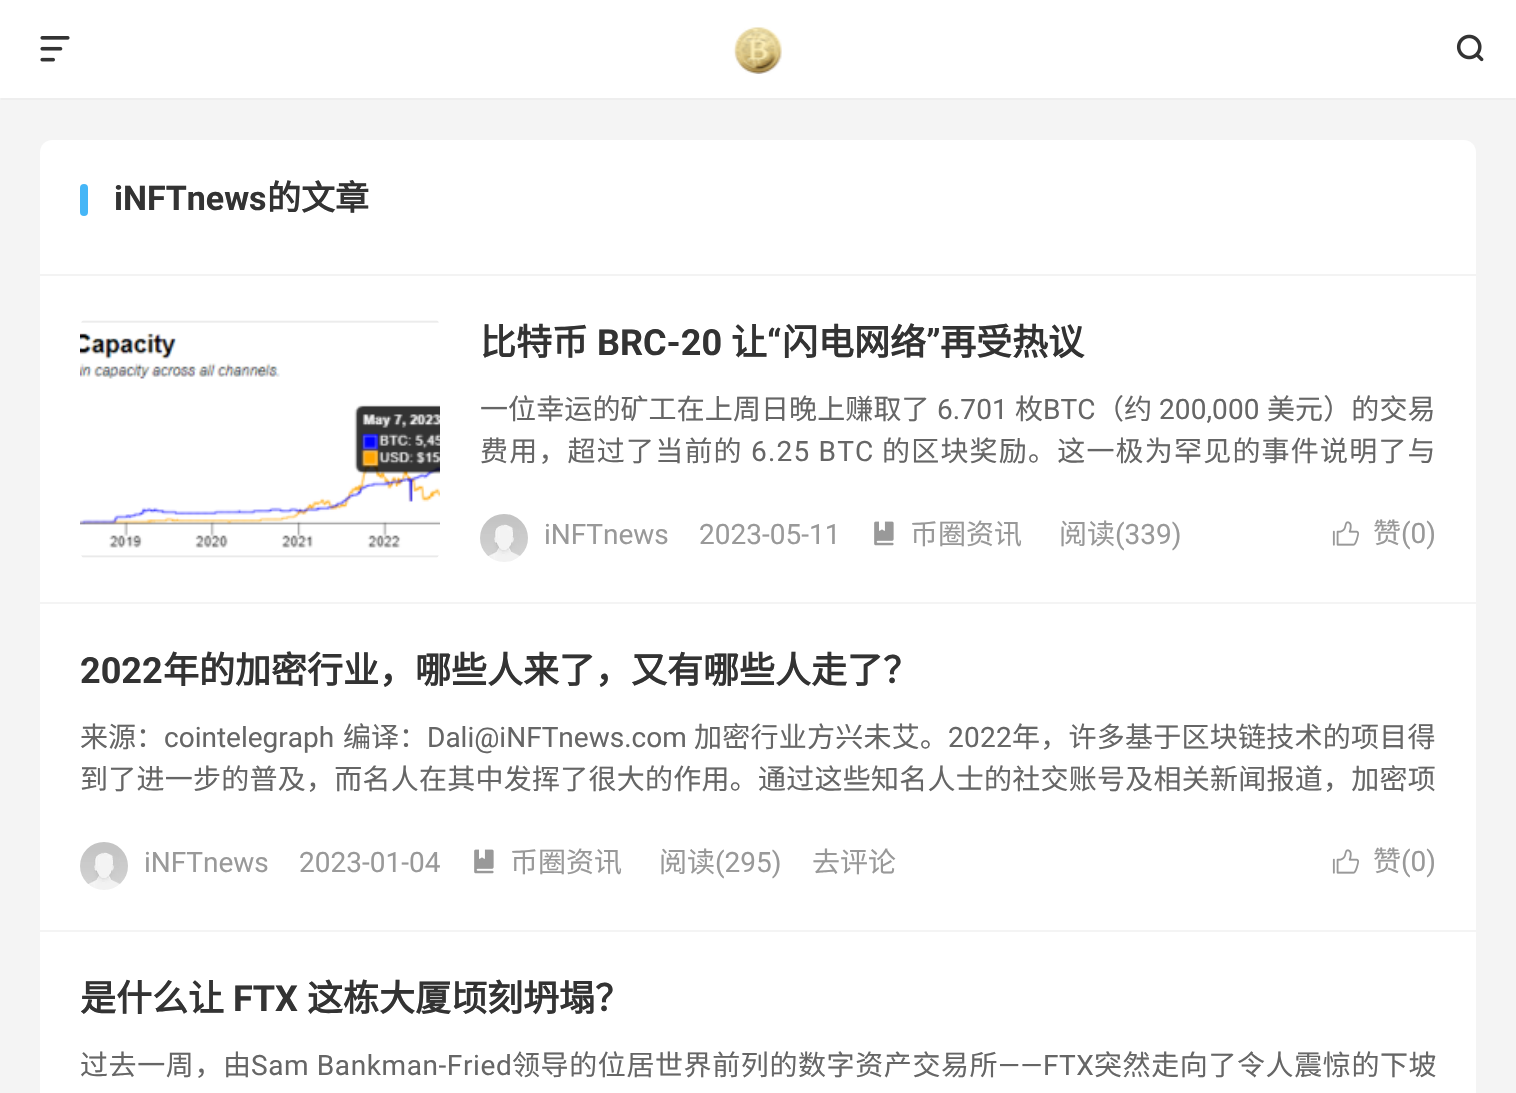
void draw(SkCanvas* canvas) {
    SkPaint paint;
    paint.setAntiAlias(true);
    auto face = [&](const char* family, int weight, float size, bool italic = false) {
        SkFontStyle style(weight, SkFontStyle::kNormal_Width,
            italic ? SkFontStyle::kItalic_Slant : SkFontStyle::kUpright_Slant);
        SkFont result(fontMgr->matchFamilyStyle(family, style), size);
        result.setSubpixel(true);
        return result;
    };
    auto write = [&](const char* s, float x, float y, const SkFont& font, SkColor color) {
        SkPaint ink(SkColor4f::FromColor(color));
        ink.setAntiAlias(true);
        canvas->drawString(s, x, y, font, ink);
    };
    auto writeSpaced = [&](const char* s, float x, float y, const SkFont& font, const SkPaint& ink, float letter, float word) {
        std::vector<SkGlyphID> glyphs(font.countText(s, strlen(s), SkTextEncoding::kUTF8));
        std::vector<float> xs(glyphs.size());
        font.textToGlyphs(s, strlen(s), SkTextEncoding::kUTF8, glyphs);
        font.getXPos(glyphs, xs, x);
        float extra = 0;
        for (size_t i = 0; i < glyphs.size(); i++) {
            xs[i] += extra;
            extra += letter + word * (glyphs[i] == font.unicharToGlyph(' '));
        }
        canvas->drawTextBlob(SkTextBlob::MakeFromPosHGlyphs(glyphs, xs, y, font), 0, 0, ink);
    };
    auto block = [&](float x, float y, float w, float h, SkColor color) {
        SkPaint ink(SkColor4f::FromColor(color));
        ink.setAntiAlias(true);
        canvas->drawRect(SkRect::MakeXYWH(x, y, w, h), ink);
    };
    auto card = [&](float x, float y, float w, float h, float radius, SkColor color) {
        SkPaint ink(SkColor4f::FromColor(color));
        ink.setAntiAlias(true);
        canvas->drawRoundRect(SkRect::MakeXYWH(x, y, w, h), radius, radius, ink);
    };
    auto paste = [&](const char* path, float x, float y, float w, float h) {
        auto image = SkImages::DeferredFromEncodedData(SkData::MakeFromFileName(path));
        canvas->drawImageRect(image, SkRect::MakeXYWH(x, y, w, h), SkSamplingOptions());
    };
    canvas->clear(SkColorSetRGB(244, 244, 244));
    block(0, 0, 1516, 100, SK_ColorWHITE);
    paste("pic1.png", 733, 27, 49, 47);
    paste("pic2.png", 1456, 34, 28, 28);
    card(0, 98, 1516, 2, 1, SkColorSetRGB(238, 238, 238));
    paste("pic3.png", 40, 36, 30, 26);
    paint.setColor(SK_ColorWHITE);
    canvas->drawPath(SkPathBuilder().moveTo(52, 140).lineTo(1464, 140).cubicTo(1470.5f, 140, 1476, 145.5f, 1476, 152).lineTo(1476, 276).lineTo(40, 276).lineTo(40, 152).cubicTo(40, 145.5f, 45.5f, 140, 52, 140).close().detach(), paint);
    block(40, 274, 1436, 2, SkColorSetRGB(243, 243, 243));
    card(80, 184, 8, 32, 4, SkColorSetRGB(69, 182, 247));
    auto kFont1 = face("Roboto", 700, 34);
    write("iNFTnews", 114, 210, kFont1, SkColorSetRGB(51, 51, 51));
    auto kFont2 = face("Noto Sans CJK SC", 700, 34);
    write("的文章", 267, 210, kFont2, SkColorSetRGB(51, 51, 51));
    block(40, 276, 1436, 326, SK_ColorWHITE);
    paste("pic4.png", 80, 320, 360, 238);
    auto kFont3 = face("Noto Sans CJK SC", 700, 36);
    write("比特币", 480, 355, kFont3, SkColorSetRGB(51, 51, 51));
    auto kFont4 = face("Roboto", 700, 36);
    write("BRC-20", 597, 355, kFont4, SkColorSetRGB(51, 51, 51));
    write("让", 731, 355, kFont3, SkColorSetRGB(51, 51, 51));
    write("“", 767, 355, kFont4, SkColorSetRGB(51, 51, 51));
    write("闪电网络", 782, 355, kFont3, SkColorSetRGB(51, 51, 51));
    write("”", 926, 355, kFont4, SkColorSetRGB(51, 51, 51));
    write("再受热议", 940, 355, kFont3, SkColorSetRGB(51, 51, 51));
    auto kFont5 = face("Noto Sans CJK SC", 400, 28);
    paint.setColor(SkColorSetRGB(102, 102, 102));
    writeSpaced("一位幸运的矿工在上周日晚上赚取了", 480, 419, kFont5, paint, 0.1f, 0);
    auto kFont6 = face("Roboto", 400, 28);
    writeSpaced("6.701", 937, 419, kFont6, paint, 0.1f, 0);
    writeSpaced("枚", 1015, 419, kFont5, paint, 0.1f, 0);
    writeSpaced("BTC", 1043, 419, kFont6, paint, 0.1f, 0);
    writeSpaced("（约", 1096, 419, kFont5, paint, 0.1f, 0);
    writeSpaced("200,000", 1159, 419, kFont6, paint, 0.1f, 0);
    writeSpaced("美元）的交易", 1267, 419, kFont5, paint, 0.1f, 0);
    writeSpaced("费用，超过了当前的", 480, 461, kFont5, paint, 1.2f, 0);
    writeSpaced("6.25 BTC", 751, 461, kFont6, paint, 1.2f, 0);
    writeSpaced("的区块奖励。这一极为罕见的事件说明了与", 882, 461, kFont5, paint, 1.2f, 0);
    paste("pic5.png", 480, 514, 48, 48);
    write("iNFTnews", 544, 544, kFont6, SkColorSetRGB(153, 153, 153));
    write("2023-05-11", 699, 544, kFont6, SkColorSetRGB(153, 153, 153));
    paste("pic6.png", 874, 521, 20, 25);
    write("币圈资讯", 910, 544, kFont5, SkColorSetRGB(153, 153, 153));
    write("阅读", 1059, 544, kFont5, SkColorSetRGB(153, 153, 153));
    write("(339)", 1115, 544, kFont6, SkColorSetRGB(153, 153, 153));
    paste("pic7.png", 1332, 521, 27, 25);
    write("赞", 1373, 543, kFont5, SkColorSetRGB(153, 153, 153));
    write("(0)", 1401, 543, kFont6, SkColorSetRGB(153, 153, 153));
    block(40, 604, 1436, 326, SK_ColorWHITE);
    write("2022", 80, 683, kFont4, SkColorSetRGB(51, 51, 51));
    write("年的加密行业，哪些人来了，又有哪些人走了？", 163, 683, kFont3, SkColorSetRGB(51, 51, 51));
    write("来源：", 80, 747, kFont5, SkColorSetRGB(102, 102, 102));
    write("cointelegraph", 164, 747, kFont6, SkColorSetRGB(102, 102, 102));
    write("编译：", 343, 747, kFont5, SkColorSetRGB(102, 102, 102));
    write("Dali@iNFTnews.com", 427, 747, kFont6, SkColorSetRGB(102, 102, 102));
    writeSpaced("加密行业方兴未艾。", 694, 747, kFont5, paint, 0.25f, 0);
    writeSpaced("2022", 948, 747, kFont6, paint, 0.25f, 0);
    writeSpaced("年，许多基于区块链技术的项目得", 1012, 747, kFont5, paint, 0.25f, 0);
    writeSpaced("到了进一步的普及，而名人在其中发挥了很大的作用。通过这些知名人士的社交账号及相关新闻报道，加密项", 80, 789, kFont5, paint, 0.25f, 0);
    paste("pic8.png", 80, 842, 48, 48);
    write("iNFTnews", 144, 872, kFont6, SkColorSetRGB(153, 153, 153));
    write("2023-01-04", 299, 872, kFont6, SkColorSetRGB(153, 153, 153));
    paste("pic6.png", 474, 849, 20, 25);
    write("币圈资讯", 510, 872, kFont5, SkColorSetRGB(153, 153, 153));
    write("阅读", 659, 872, kFont5, SkColorSetRGB(153, 153, 153));
    write("(295)", 715, 872, kFont6, SkColorSetRGB(153, 153, 153));
    write("去评论", 812, 872, kFont5, SkColorSetRGB(153, 153, 153));
    paste("pic7.png", 1332, 849, 27, 25);
    write("赞", 1373, 871, kFont5, SkColorSetRGB(153, 153, 153));
    write("(0)", 1401, 871, kFont6, SkColorSetRGB(153, 153, 153));
    block(40, 932, 1436, 161, SK_ColorWHITE);
    write("是什么让", 80, 1011, kFont3, SkColorSetRGB(51, 51, 51));
    write("FTX", 233, 1011, kFont4, SkColorSetRGB(51, 51, 51));
    write("这栋大厦顷刻坍塌？", 307, 1011, kFont3, SkColorSetRGB(51, 51, 51));
    writeSpaced("过去一周，由", 80, 1075, kFont5, paint, 0.6f, 0);
    writeSpaced("Sam Bankman-Fried", 251, 1075, kFont6, paint, 0.6f, 0);
    writeSpaced("领导的位居世界前列的数字资产交易所", 512, 1075, kFont5, paint, 0.6f, 0);
    writeSpaced("——FTX", 998, 1075, kFont6, paint, 0.6f, 0);
    writeSpaced("突然走向了令人震惊的下坡", 1094, 1075, kFont5, paint, 0.6f, 0);
}
